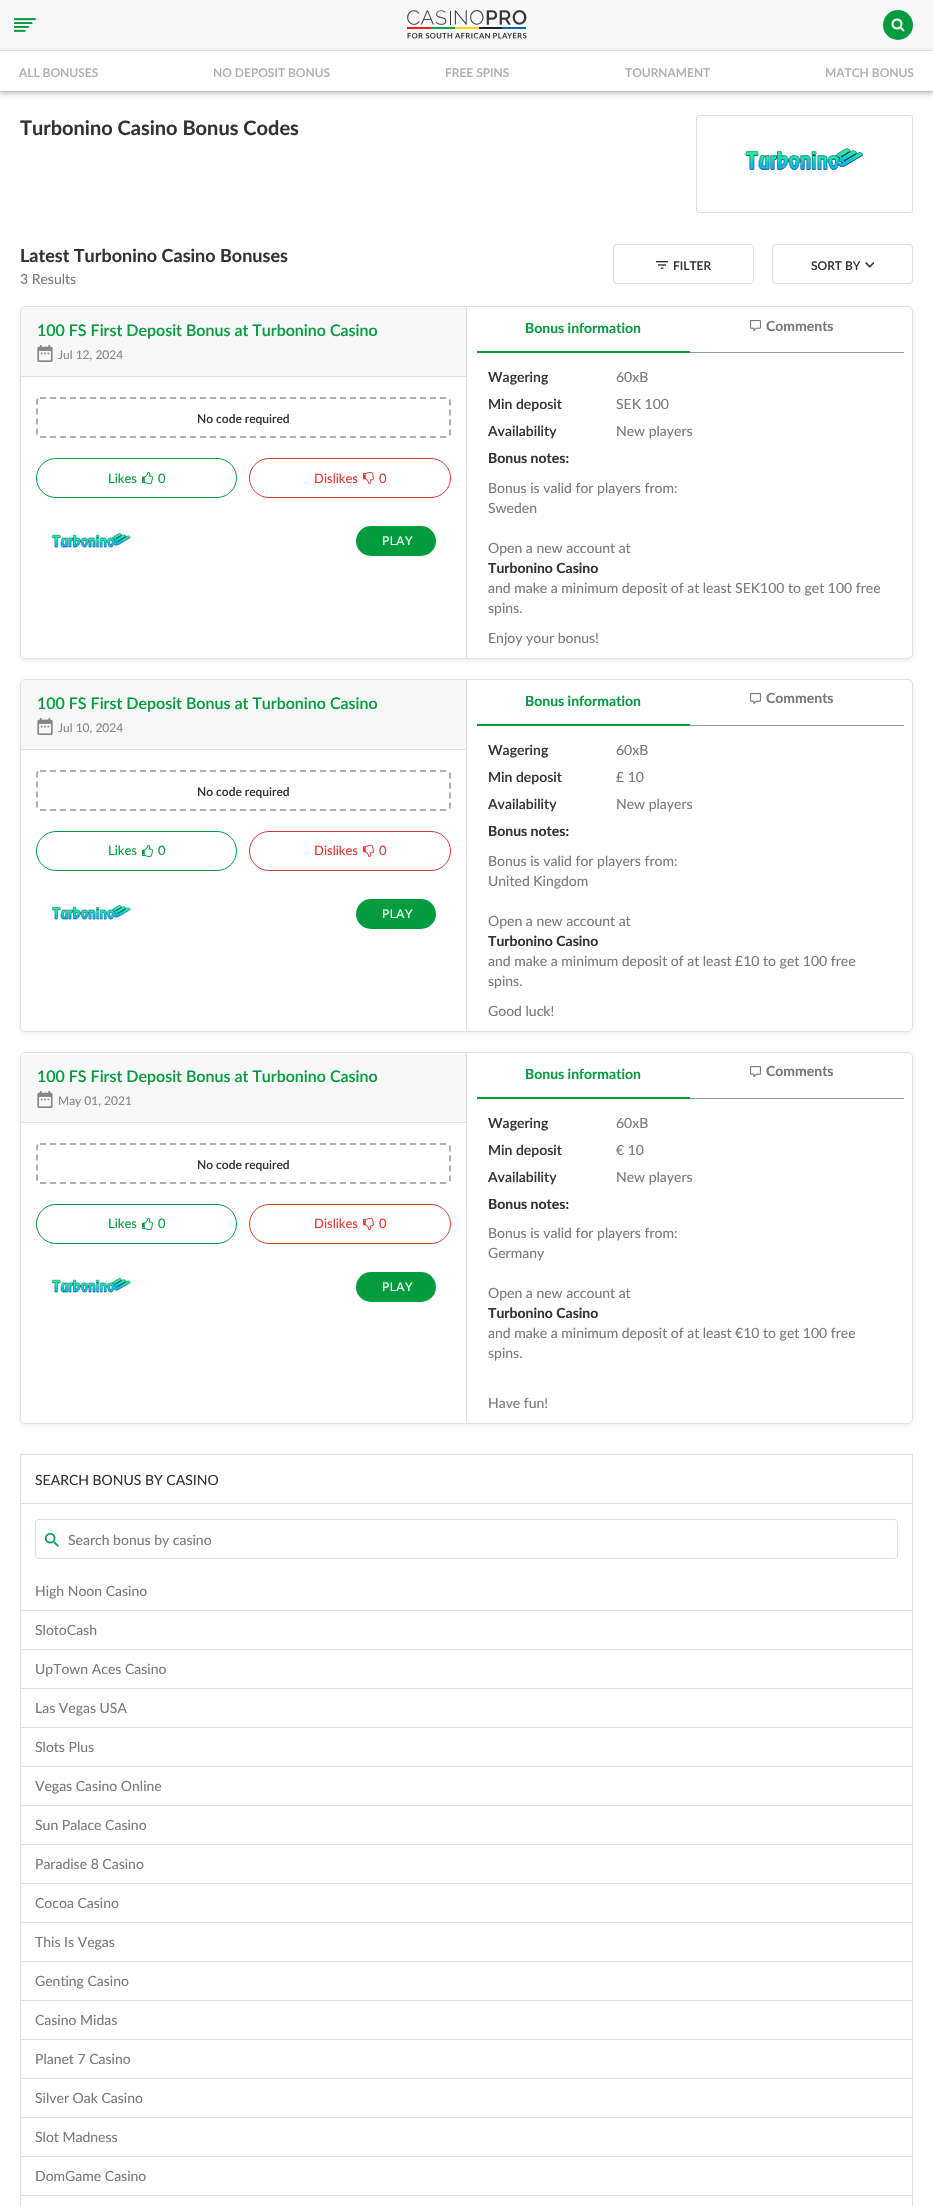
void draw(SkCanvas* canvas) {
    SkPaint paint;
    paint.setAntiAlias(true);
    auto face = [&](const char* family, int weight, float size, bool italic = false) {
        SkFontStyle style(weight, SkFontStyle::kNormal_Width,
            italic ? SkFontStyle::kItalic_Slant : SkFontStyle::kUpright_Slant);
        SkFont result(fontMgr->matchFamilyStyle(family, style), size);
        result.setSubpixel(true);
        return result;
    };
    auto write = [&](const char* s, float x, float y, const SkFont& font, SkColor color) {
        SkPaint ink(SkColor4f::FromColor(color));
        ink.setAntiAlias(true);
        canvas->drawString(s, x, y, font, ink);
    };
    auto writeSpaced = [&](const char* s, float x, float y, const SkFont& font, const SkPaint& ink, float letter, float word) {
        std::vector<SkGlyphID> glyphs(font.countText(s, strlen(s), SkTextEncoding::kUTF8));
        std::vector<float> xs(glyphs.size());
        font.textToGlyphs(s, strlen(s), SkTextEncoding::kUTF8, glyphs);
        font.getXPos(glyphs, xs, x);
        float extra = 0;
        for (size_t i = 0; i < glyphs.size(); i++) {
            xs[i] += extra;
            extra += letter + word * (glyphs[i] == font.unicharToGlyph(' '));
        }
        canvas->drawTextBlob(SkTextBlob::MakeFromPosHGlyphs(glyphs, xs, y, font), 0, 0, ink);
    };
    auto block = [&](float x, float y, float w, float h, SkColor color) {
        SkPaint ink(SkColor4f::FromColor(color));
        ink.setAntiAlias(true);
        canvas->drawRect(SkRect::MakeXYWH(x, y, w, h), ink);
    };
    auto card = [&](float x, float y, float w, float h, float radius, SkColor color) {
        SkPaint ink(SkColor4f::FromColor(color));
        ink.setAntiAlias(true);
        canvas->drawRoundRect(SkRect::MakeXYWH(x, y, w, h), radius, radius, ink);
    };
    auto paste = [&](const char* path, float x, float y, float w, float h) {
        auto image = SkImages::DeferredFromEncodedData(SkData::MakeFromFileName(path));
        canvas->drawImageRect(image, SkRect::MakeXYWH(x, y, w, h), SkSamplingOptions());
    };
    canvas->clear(SK_ColorWHITE);
    paint.setColor(SkColorSetARGB(26, 0, 0, 0));
    paint.setMaskFilter(SkMaskFilter::MakeBlur(kNormal_SkBlurStyle, 2.5f));
    canvas->drawRect(SkRect::MakeXYWH(0, 2, 933, 92), paint);
    paint.setMaskFilter(nullptr);
    block(0, 0, 933, 50, SkColorSetRGB(248, 248, 248));
    block(0, 91, 933, 1, SkColorSetRGB(220, 224, 219));
    paste("pic1.png", 14, 18, 22, 14);
    paste("pic2.png", 407, 10, 120, 29);
    paint.setColor(SkColorSetRGB(2, 156, 62));
    canvas->drawCircle(898, 25, 15, paint);
    paste("pic3.png", 891, 18, 14, 14);
    paint.setColor(SkColorSetARGB(41, 0, 0, 0));
    paint.setMaskFilter(SkMaskFilter::MakeBlur(kNormal_SkBlurStyle, 2.5f));
    canvas->drawRect(SkRect::MakeXYWH(0, 52, 933, 41), paint);
    paint.setMaskFilter(nullptr);
    block(0, 51, 933, 40, SK_ColorWHITE);
    block(0, 50, 933, 1, SkColorSetRGB(220, 224, 219));
    auto kFont1 = face("Lato", 600, 12);
    write("ALL BONUSES", 19, 77, kFont1, SkColorSetRGB(173, 175, 172));
    write("NO DEPOSIT BONUS", 213, 77, kFont1, SkColorSetRGB(173, 175, 172));
    write("FREE SPINS", 445, 77, kFont1, SkColorSetRGB(173, 175, 172));
    write("TOURNAMENT", 625, 77, kFont1, SkColorSetRGB(173, 175, 172));
    write("MATCH BONUS", 825, 77, kFont1, SkColorSetRGB(173, 175, 172));
    auto kFont2 = face("Lato", 700, 20);
    write("Turbonino Casino Bonus Codes", 20, 135, kFont2, SkColorSetRGB(50, 50, 50));
    paint.setStyle(SkPaint::kStroke_Style);
    paint.setStrokeWidth(1);
    paint.setColor(SkColorSetRGB(220, 224, 219));
    canvas->drawRoundRect(SkRect::MakeXYWH(696.5f, 115.5f, 216, 97), 2.5f, 2.5f, paint);
    paste("pic4.png", 745, 146, 119, 26);
    auto kFont3 = face("Lato", 700, 18);
    write("Latest Turbonino Casino Bonuses", 20, 262, kFont3, SkColorSetRGB(50, 50, 50));
    canvas->drawRoundRect(SkRect::MakeXYWH(613.5f, 244.5f, 140, 39), 3.5f, 3.5f, paint);
    paste("pic5.png", 656, 261, 12, 8);
    write("FILTER", 673, 270, kFont1, SkColorSetRGB(50, 50, 50));
    canvas->drawRoundRect(SkRect::MakeXYWH(772.5f, 244.5f, 140, 39), 3.5f, 3.5f, paint);
    write("SORT BY", 811, 270, kFont1, SkColorSetRGB(50, 50, 50));
    paste("pic6.png", 865, 262, 9, 6);
    auto kFont4 = face("Lato", 400, 14);
    write("3 Results", 20, 284, kFont4, SkColorSetRGB(119, 122, 117));
    canvas->save();
    canvas->clipPath(SkPathBuilder(SkPathFillType::kEvenOdd).moveTo(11, 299).lineTo(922, 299).lineTo(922, 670).lineTo(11, 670).close().moveTo(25, 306).lineTo(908, 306).cubicTo(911, 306, 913, 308, 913, 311).lineTo(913, 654).cubicTo(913, 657, 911, 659, 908, 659).lineTo(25, 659).cubicTo(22, 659, 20, 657, 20, 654).lineTo(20, 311).cubicTo(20, 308, 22, 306, 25, 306).close().detach(), true);
    paint.setStyle(SkPaint::kFill_Style);
    paint.setColor(SkColorSetARGB(18, 0, 0, 0));
    paint.setMaskFilter(SkMaskFilter::MakeBlur(kNormal_SkBlurStyle, 2.5f));
    canvas->drawRoundRect(SkRect::MakeXYWH(20, 308, 893, 353), 5, 5, paint);
    paint.setMaskFilter(nullptr);
    canvas->restore();
    paint.setStyle(SkPaint::kStroke_Style);
    paint.setColor(SkColorSetRGB(224, 224, 224));
    canvas->drawRoundRect(SkRect::MakeXYWH(20.5f, 306.5f, 892, 352), 4.5f, 4.5f, paint);
    block(466, 307, 1, 351, SkColorSetRGB(220, 224, 219));
    paint.setStyle(SkPaint::kFill_Style);
    paint.setColor(SkColorSetRGB(248, 248, 248));
    canvas->drawPath(SkPathBuilder().moveTo(27, 307).lineTo(466, 307).lineTo(466, 377).lineTo(21, 377).lineTo(21, 313).cubicTo(21, 309.5f, 23.5f, 307, 27, 307).close().detach(), paint);
    block(21, 376, 445, 1, SkColorSetRGB(224, 224, 224));
    auto kFont5 = face("Lato", 600, 16);
    write("100 FS First Deposit Bonus at Turbonino Casino", 37, 336, kFont5, SkColorSetRGB(2, 156, 62));
    paste("pic7.png", 37, 345, 16, 17);
    auto kFont6 = face("Lato", 400, 12);
    write("Jul 12, 2024", 58, 359, kFont6, SkColorSetRGB(131, 134, 138));
    paint.setStyle(SkPaint::kStroke_Style);
    paint.setStrokeWidth(2);
    paint.setColor(SkColorSetRGB(174, 174, 174));
    paint.setPathEffect(SkDashPathEffect::Make({{6, 4}}, 0));
    canvas->drawPath(SkPathBuilder().moveTo(40, 398).lineTo(447, 398).cubicTo(448.5f, 398, 450, 399.5f, 450, 401).lineTo(450, 434).cubicTo(450, 435.5f, 448.5f, 437, 447, 437).lineTo(40, 437).cubicTo(38.5f, 437, 37, 435.5f, 37, 434).lineTo(37, 401).cubicTo(37, 399.5f, 38.5f, 398, 40, 398).close().detach(), paint);
    paint.setPathEffect(nullptr);
    write("No code required", 197, 423, kFont1, SkColorSetRGB(50, 50, 50));
    paint.setStrokeWidth(1);
    paint.setColor(SkColorSetRGB(2, 156, 62));
    canvas->drawRoundRect(SkRect::MakeXYWH(36.5f, 458.5f, 200, 39), 19.5f, 19.5f, paint);
    auto kFont7 = face("Lato", 400, 13);
    write("Likes", 108, 483, kFont7, SkColorSetRGB(2, 156, 62));
    paste("pic8.png", 142, 472, 11, 12);
    write("0", 158, 483, kFont7, SkColorSetRGB(2, 156, 62));
    paint.setColor(SkColorSetRGB(222, 56, 49));
    canvas->drawRoundRect(SkRect::MakeXYWH(249.5f, 458.5f, 201, 39), 19.5f, 19.5f, paint);
    write("Dislikes", 314, 483, kFont7, SkColorSetRGB(222, 56, 49));
    paste("pic9.png", 363, 472, 11, 12);
    write("0", 379, 483, kFont7, SkColorSetRGB(222, 56, 49));
    paste("pic10.png", 51, 533, 80, 15);
    card(356, 526, 80, 30, 15, SkColorSetRGB(2, 156, 62));
    paint.setStyle(SkPaint::kFill_Style);
    paint.setColor(SK_ColorWHITE);
    writeSpaced("PLAY", 382, 545, kFont6, paint, 0.5f, 0);
    block(690, 352, 214, 1, SkColorSetRGB(149, 152, 154));
    block(477, 351, 213, 2, SkColorSetRGB(2, 156, 62));
    auto kFont8 = face("Lato", 700, 14);
    write("Bonus information", 525, 333, kFont8, SkColorSetRGB(2, 156, 62));
    paste("pic11.png", 750, 320, 11, 11);
    write("Comments", 766, 331, kFont8, SkColorSetRGB(119, 122, 117));
    auto kFont9 = face("Lato", 600, 14);
    write("Wagering", 488, 382, kFont9, SkColorSetRGB(50, 50, 50));
    write("60xB", 616, 382, kFont4, SkColorSetRGB(119, 122, 117));
    write("Min deposit", 488, 409, kFont9, SkColorSetRGB(50, 50, 50));
    write("SEK 100", 616, 409, kFont4, SkColorSetRGB(119, 122, 117));
    write("Availability", 488, 436, kFont9, SkColorSetRGB(50, 50, 50));
    write("New players", 616, 436, kFont4, SkColorSetRGB(119, 122, 117));
    write("Bonus notes:", 488, 463, kFont8, SkColorSetRGB(50, 50, 50));
    write("Bonus is valid for players from:", 488, 493, kFont4, SkColorSetRGB(119, 122, 117));
    write("Sweden", 488, 513, kFont4, SkColorSetRGB(119, 122, 117));
    write("Open a new account at", 488, 553, kFont4, SkColorSetRGB(119, 122, 117));
    write("Turbonino Casino", 488, 573, kFont8, SkColorSetRGB(50, 50, 50));
    write("and make a minimum deposit of at least SEK100 to get 100 free", 488, 593, kFont4, SkColorSetRGB(119, 122, 117));
    write("spins.", 488, 613, kFont4, SkColorSetRGB(119, 122, 117));
    write("Enjoy your bonus!", 488, 643, kFont4, SkColorSetRGB(119, 122, 117));
    canvas->save();
    canvas->clipPath(SkPathBuilder(SkPathFillType::kEvenOdd).moveTo(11, 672).lineTo(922, 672).lineTo(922, 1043).lineTo(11, 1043).close().moveTo(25, 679).lineTo(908, 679).cubicTo(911, 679, 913, 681, 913, 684).lineTo(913, 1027).cubicTo(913, 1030, 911, 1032, 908, 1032).lineTo(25, 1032).cubicTo(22, 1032, 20, 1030, 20, 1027).lineTo(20, 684).cubicTo(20, 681, 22, 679, 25, 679).close().detach(), true);
    paint.setColor(SkColorSetARGB(18, 0, 0, 0));
    paint.setMaskFilter(SkMaskFilter::MakeBlur(kNormal_SkBlurStyle, 2.5f));
    canvas->drawRoundRect(SkRect::MakeXYWH(20, 681, 893, 353), 5, 5, paint);
    paint.setMaskFilter(nullptr);
    canvas->restore();
    paint.setStyle(SkPaint::kStroke_Style);
    paint.setColor(SkColorSetRGB(224, 224, 224));
    canvas->drawRoundRect(SkRect::MakeXYWH(20.5f, 679.5f, 892, 352), 4.5f, 4.5f, paint);
    block(466, 680, 1, 351, SkColorSetRGB(220, 224, 219));
    paint.setStyle(SkPaint::kFill_Style);
    paint.setColor(SkColorSetRGB(248, 248, 248));
    canvas->drawPath(SkPathBuilder().moveTo(27, 680).lineTo(466, 680).lineTo(466, 750).lineTo(21, 750).lineTo(21, 686).cubicTo(21, 682.5f, 23.5f, 680, 27, 680).close().detach(), paint);
    block(21, 749, 445, 1, SkColorSetRGB(224, 224, 224));
    write("100 FS First Deposit Bonus at Turbonino Casino", 37, 709, kFont5, SkColorSetRGB(2, 156, 62));
    paste("pic7.png", 37, 718, 16, 17);
    write("Jul 10, 2024", 58, 732, kFont6, SkColorSetRGB(131, 134, 138));
    paint.setStyle(SkPaint::kStroke_Style);
    paint.setStrokeWidth(2);
    paint.setColor(SkColorSetRGB(174, 174, 174));
    paint.setPathEffect(SkDashPathEffect::Make({{6, 4}}, 0));
    canvas->drawPath(SkPathBuilder().moveTo(40, 771).lineTo(447, 771).cubicTo(448.5f, 771, 450, 772.5f, 450, 774).lineTo(450, 807).cubicTo(450, 808.5f, 448.5f, 810, 447, 810).lineTo(40, 810).cubicTo(38.5f, 810, 37, 808.5f, 37, 807).lineTo(37, 774).cubicTo(37, 772.5f, 38.5f, 771, 40, 771).close().detach(), paint);
    paint.setPathEffect(nullptr);
    write("No code required", 197, 796, kFont1, SkColorSetRGB(50, 50, 50));
    paint.setStrokeWidth(1);
    paint.setColor(SkColorSetRGB(2, 156, 62));
    canvas->drawRoundRect(SkRect::MakeXYWH(36.5f, 831.5f, 200, 39), 19.5f, 19.5f, paint);
    write("Likes", 108, 855, kFont7, SkColorSetRGB(2, 156, 62));
    paste("pic8.png", 142, 845, 11, 12);
    write("0", 158, 855, kFont7, SkColorSetRGB(2, 156, 62));
    paint.setColor(SkColorSetRGB(222, 56, 49));
    canvas->drawRoundRect(SkRect::MakeXYWH(249.5f, 831.5f, 201, 39), 19.5f, 19.5f, paint);
    write("Dislikes", 314, 855, kFont7, SkColorSetRGB(222, 56, 49));
    paste("pic9.png", 363, 845, 11, 12);
    write("0", 379, 855, kFont7, SkColorSetRGB(222, 56, 49));
    paste("pic10.png", 51, 905, 80, 15);
    card(356, 899, 80, 30, 15, SkColorSetRGB(2, 156, 62));
    paint.setStyle(SkPaint::kFill_Style);
    paint.setColor(SK_ColorWHITE);
    writeSpaced("PLAY", 382, 918, kFont6, paint, 0.5f, 0);
    block(690, 725, 214, 1, SkColorSetRGB(149, 152, 154));
    block(477, 724, 213, 2, SkColorSetRGB(2, 156, 62));
    write("Bonus information", 525, 706, kFont8, SkColorSetRGB(2, 156, 62));
    paste("pic11.png", 750, 693, 11, 11);
    write("Comments", 766, 703, kFont8, SkColorSetRGB(119, 122, 117));
    write("Wagering", 488, 755, kFont9, SkColorSetRGB(50, 50, 50));
    write("60xB", 616, 755, kFont4, SkColorSetRGB(119, 122, 117));
    write("Min deposit", 488, 782, kFont9, SkColorSetRGB(50, 50, 50));
    write("£ 10", 616, 782, kFont4, SkColorSetRGB(119, 122, 117));
    write("Availability", 488, 809, kFont9, SkColorSetRGB(50, 50, 50));
    write("New players", 616, 809, kFont4, SkColorSetRGB(119, 122, 117));
    write("Bonus notes:", 488, 836, kFont8, SkColorSetRGB(50, 50, 50));
    write("Bonus is valid for players from:", 488, 866, kFont4, SkColorSetRGB(119, 122, 117));
    write("United Kingdom", 488, 886, kFont4, SkColorSetRGB(119, 122, 117));
    write("Open a new account at", 488, 926, kFont4, SkColorSetRGB(119, 122, 117));
    write("Turbonino Casino", 488, 946, kFont8, SkColorSetRGB(50, 50, 50));
    write("and make a minimum deposit of at least £10 to get 100 free", 488, 966, kFont4, SkColorSetRGB(119, 122, 117));
    write("spins.", 488, 986, kFont4, SkColorSetRGB(119, 122, 117));
    write("Good luck!", 488, 1016, kFont4, SkColorSetRGB(119, 122, 117));
    canvas->save();
    canvas->clipPath(SkPathBuilder(SkPathFillType::kEvenOdd).moveTo(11, 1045).lineTo(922, 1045).lineTo(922, 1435).lineTo(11, 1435).close().moveTo(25, 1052).lineTo(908, 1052).cubicTo(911, 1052, 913, 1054, 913, 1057).lineTo(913, 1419).cubicTo(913, 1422, 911, 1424, 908, 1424).lineTo(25, 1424).cubicTo(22, 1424, 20, 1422, 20, 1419).lineTo(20, 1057).cubicTo(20, 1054, 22, 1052, 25, 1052).close().detach(), true);
    paint.setColor(SkColorSetARGB(18, 0, 0, 0));
    paint.setMaskFilter(SkMaskFilter::MakeBlur(kNormal_SkBlurStyle, 2.5f));
    canvas->drawRoundRect(SkRect::MakeXYWH(20, 1054, 893, 372), 5, 5, paint);
    paint.setMaskFilter(nullptr);
    canvas->restore();
    paint.setStyle(SkPaint::kStroke_Style);
    paint.setColor(SkColorSetRGB(224, 224, 224));
    canvas->drawRoundRect(SkRect::MakeXYWH(20.5f, 1052.5f, 892, 371), 4.5f, 4.5f, paint);
    block(466, 1053, 1, 370, SkColorSetRGB(220, 224, 219));
    paint.setStyle(SkPaint::kFill_Style);
    paint.setColor(SkColorSetRGB(248, 248, 248));
    canvas->drawPath(SkPathBuilder().moveTo(27, 1053).lineTo(466, 1053).lineTo(466, 1123).lineTo(21, 1123).lineTo(21, 1059).cubicTo(21, 1055.5f, 23.5f, 1053, 27, 1053).close().detach(), paint);
    block(21, 1122, 445, 1, SkColorSetRGB(224, 224, 224));
    write("100 FS First Deposit Bonus at Turbonino Casino", 37, 1082, kFont5, SkColorSetRGB(2, 156, 62));
    paste("pic7.png", 37, 1091, 16, 17);
    write("May 01, 2021", 58, 1105, kFont6, SkColorSetRGB(131, 134, 138));
    paint.setStyle(SkPaint::kStroke_Style);
    paint.setStrokeWidth(2);
    paint.setColor(SkColorSetRGB(174, 174, 174));
    paint.setPathEffect(SkDashPathEffect::Make({{6, 4}}, 0));
    canvas->drawPath(SkPathBuilder().moveTo(40, 1144).lineTo(447, 1144).cubicTo(448.5f, 1144, 450, 1145.5f, 450, 1147).lineTo(450, 1180).cubicTo(450, 1181.5f, 448.5f, 1183, 447, 1183).lineTo(40, 1183).cubicTo(38.5f, 1183, 37, 1181.5f, 37, 1180).lineTo(37, 1147).cubicTo(37, 1145.5f, 38.5f, 1144, 40, 1144).close().detach(), paint);
    paint.setPathEffect(nullptr);
    write("No code required", 197, 1169, kFont1, SkColorSetRGB(50, 50, 50));
    paint.setStrokeWidth(1);
    paint.setColor(SkColorSetRGB(2, 156, 62));
    canvas->drawRoundRect(SkRect::MakeXYWH(36.5f, 1204.5f, 200, 39), 19.5f, 19.5f, paint);
    write("Likes", 108, 1228, kFont7, SkColorSetRGB(2, 156, 62));
    paste("pic8.png", 142, 1218, 11, 12);
    write("0", 158, 1228, kFont7, SkColorSetRGB(2, 156, 62));
    paint.setColor(SkColorSetRGB(222, 56, 49));
    canvas->drawRoundRect(SkRect::MakeXYWH(249.5f, 1204.5f, 201, 39), 19.5f, 19.5f, paint);
    write("Dislikes", 314, 1228, kFont7, SkColorSetRGB(222, 56, 49));
    paste("pic9.png", 363, 1218, 11, 12);
    write("0", 379, 1228, kFont7, SkColorSetRGB(222, 56, 49));
    paste("pic10.png", 51, 1278, 80, 15);
    card(356, 1272, 80, 30, 15, SkColorSetRGB(2, 156, 62));
    paint.setStyle(SkPaint::kFill_Style);
    paint.setColor(SK_ColorWHITE);
    writeSpaced("PLAY", 382, 1291, kFont6, paint, 0.5f, 0);
    block(690, 1098, 214, 1, SkColorSetRGB(149, 152, 154));
    block(477, 1097, 213, 2, SkColorSetRGB(2, 156, 62));
    write("Bonus information", 525, 1079, kFont8, SkColorSetRGB(2, 156, 62));
    paste("pic11.png", 750, 1066, 11, 11);
    write("Comments", 766, 1076, kFont8, SkColorSetRGB(119, 122, 117));
    write("Wagering", 488, 1128, kFont9, SkColorSetRGB(50, 50, 50));
    write("60xB", 616, 1128, kFont4, SkColorSetRGB(119, 122, 117));
    write("Min deposit", 488, 1155, kFont9, SkColorSetRGB(50, 50, 50));
    write("€ 10", 616, 1155, kFont4, SkColorSetRGB(119, 122, 117));
    write("Availability", 488, 1182, kFont9, SkColorSetRGB(50, 50, 50));
    write("New players", 616, 1182, kFont4, SkColorSetRGB(119, 122, 117));
    write("Bonus notes:", 488, 1209, kFont8, SkColorSetRGB(50, 50, 50));
    write("Bonus is valid for players from:", 488, 1238, kFont4, SkColorSetRGB(119, 122, 117));
    write("Germany", 488, 1258, kFont4, SkColorSetRGB(119, 122, 117));
    write("Open a new account at", 488, 1298, kFont4, SkColorSetRGB(119, 122, 117));
    write("Turbonino Casino", 488, 1318, kFont8, SkColorSetRGB(50, 50, 50));
    write("and make a minimum deposit of at least €10 to get 100 free", 488, 1338, kFont4, SkColorSetRGB(119, 122, 117));
    write("spins.", 488, 1358, kFont4, SkColorSetRGB(119, 122, 117));
    write("Have fun!", 488, 1408, kFont4, SkColorSetRGB(119, 122, 117));
    paint.setStyle(SkPaint::kStroke_Style);
    paint.setColor(SkColorSetRGB(220, 224, 219));
    canvas->drawRect(SkRect::MakeXYWH(20.5f, 1454.5f, 892, 49), paint);
    write("SEARCH BONUS BY CASINO", 35, 1485, kFont4, SkColorSetRGB(50, 50, 50));
    block(912, 1504, 1, 702, SkColorSetRGB(220, 224, 219));
    block(20, 1504, 1, 70, SkColorSetRGB(220, 224, 219));
    canvas->drawRoundRect(SkRect::MakeXYWH(35.5f, 1519.5f, 862, 39), 3.5f, 3.5f, paint);
    paste("pic12.png", 45, 1533, 14, 14);
    write("Search bonus by casino", 68, 1545, kFont4, SkColorSetRGB(119, 122, 117));
    block(20, 1610, 893, 1, SkColorSetRGB(220, 224, 219));
    block(20, 1574, 1, 37, SkColorSetRGB(220, 224, 219));
    write("High Noon Casino", 35, 1596, kFont4, SkColorSetRGB(119, 122, 117));
    block(20, 1649, 893, 1, SkColorSetRGB(220, 224, 219));
    block(20, 1611, 1, 39, SkColorSetRGB(220, 224, 219));
    write("SlotoCash", 35, 1635, kFont4, SkColorSetRGB(119, 122, 117));
    block(20, 1688, 893, 1, SkColorSetRGB(220, 224, 219));
    block(20, 1650, 1, 39, SkColorSetRGB(220, 224, 219));
    write("UpTown Aces Casino", 35, 1674, kFont4, SkColorSetRGB(119, 122, 117));
    block(20, 1727, 893, 1, SkColorSetRGB(220, 224, 219));
    block(20, 1689, 1, 39, SkColorSetRGB(220, 224, 219));
    write("Las Vegas USA", 35, 1713, kFont4, SkColorSetRGB(119, 122, 117));
    block(20, 1766, 893, 1, SkColorSetRGB(220, 224, 219));
    block(20, 1728, 1, 39, SkColorSetRGB(220, 224, 219));
    write("Slots Plus", 35, 1752, kFont4, SkColorSetRGB(119, 122, 117));
    block(20, 1805, 893, 1, SkColorSetRGB(220, 224, 219));
    block(20, 1767, 1, 39, SkColorSetRGB(220, 224, 219));
    write("Vegas Casino Online", 35, 1791, kFont4, SkColorSetRGB(119, 122, 117));
    block(20, 1844, 893, 1, SkColorSetRGB(220, 224, 219));
    block(20, 1806, 1, 39, SkColorSetRGB(220, 224, 219));
    write("Sun Palace Casino", 35, 1830, kFont4, SkColorSetRGB(119, 122, 117));
    block(20, 1883, 893, 1, SkColorSetRGB(220, 224, 219));
    block(20, 1845, 1, 39, SkColorSetRGB(220, 224, 219));
    write("Paradise 8 Casino", 35, 1869, kFont4, SkColorSetRGB(119, 122, 117));
    block(20, 1922, 893, 1, SkColorSetRGB(220, 224, 219));
    block(20, 1884, 1, 39, SkColorSetRGB(220, 224, 219));
    write("Cocoa Casino", 35, 1908, kFont4, SkColorSetRGB(119, 122, 117));
    block(20, 1961, 893, 1, SkColorSetRGB(220, 224, 219));
    block(20, 1923, 1, 39, SkColorSetRGB(220, 224, 219));
    write("This Is Vegas", 35, 1947, kFont4, SkColorSetRGB(119, 122, 117));
    block(20, 2000, 893, 1, SkColorSetRGB(220, 224, 219));
    block(20, 1962, 1, 39, SkColorSetRGB(220, 224, 219));
    write("Genting Casino", 35, 1986, kFont4, SkColorSetRGB(119, 122, 117));
    block(20, 2039, 893, 1, SkColorSetRGB(220, 224, 219));
    block(20, 2001, 1, 39, SkColorSetRGB(220, 224, 219));
    write("Casino Midas", 35, 2025, kFont4, SkColorSetRGB(119, 122, 117));
    block(20, 2078, 893, 1, SkColorSetRGB(220, 224, 219));
    block(20, 2040, 1, 39, SkColorSetRGB(220, 224, 219));
    write("Planet 7 Casino", 35, 2064, kFont4, SkColorSetRGB(119, 122, 117));
    block(20, 2117, 893, 1, SkColorSetRGB(220, 224, 219));
    block(20, 2079, 1, 39, SkColorSetRGB(220, 224, 219));
    write("Silver Oak Casino", 35, 2103, kFont4, SkColorSetRGB(119, 122, 117));
    block(20, 2156, 893, 1, SkColorSetRGB(220, 224, 219));
    block(20, 2118, 1, 39, SkColorSetRGB(220, 224, 219));
    write("Slot Madness", 35, 2142, kFont4, SkColorSetRGB(119, 122, 117));
    block(20, 2195, 893, 1, SkColorSetRGB(220, 224, 219));
    block(20, 2157, 1, 49, SkColorSetRGB(220, 224, 219));
    write("DomGame Casino", 35, 2181, kFont4, SkColorSetRGB(119, 122, 117));
}
